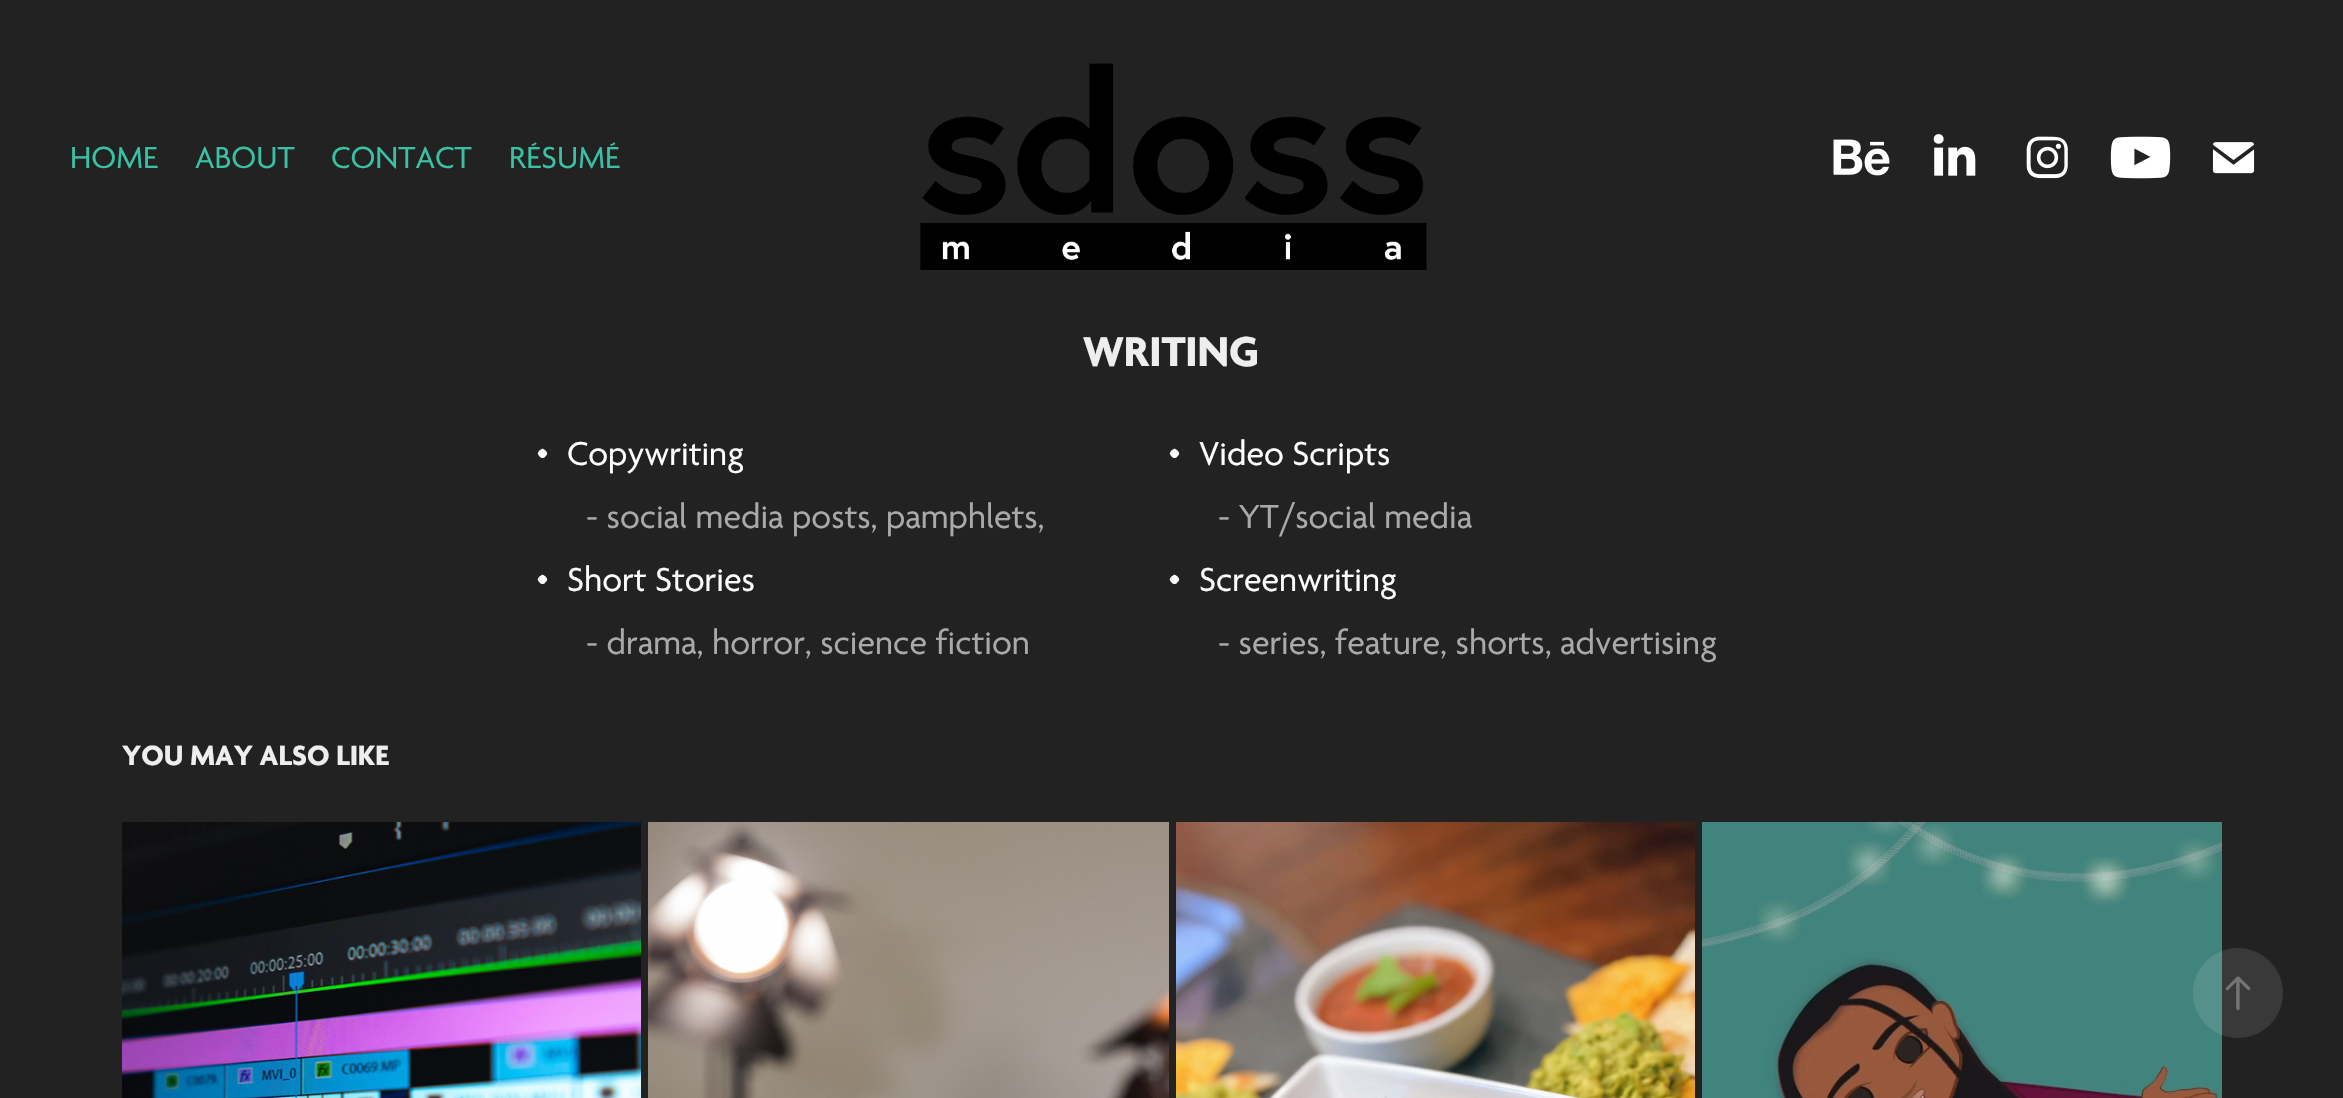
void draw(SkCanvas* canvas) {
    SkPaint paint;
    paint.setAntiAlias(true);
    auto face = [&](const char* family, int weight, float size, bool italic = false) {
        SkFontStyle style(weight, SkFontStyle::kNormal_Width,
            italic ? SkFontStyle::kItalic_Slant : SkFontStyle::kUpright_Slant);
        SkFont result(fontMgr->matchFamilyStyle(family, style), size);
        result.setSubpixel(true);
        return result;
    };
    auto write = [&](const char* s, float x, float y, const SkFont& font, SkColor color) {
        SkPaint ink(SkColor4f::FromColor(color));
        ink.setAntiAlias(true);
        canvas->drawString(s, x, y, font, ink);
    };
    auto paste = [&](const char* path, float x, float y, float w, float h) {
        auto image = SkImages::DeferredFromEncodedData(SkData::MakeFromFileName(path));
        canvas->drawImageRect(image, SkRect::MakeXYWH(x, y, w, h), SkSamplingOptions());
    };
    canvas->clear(SkColorSetRGB(34, 34, 34));
    auto kFont1 = face("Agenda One", 400, 33);
    write("HOME", 70, 168, kFont1, SkColorSetRGB(58, 193, 164));
    write("ABOUT", 195, 168, kFont1, SkColorSetRGB(58, 193, 164));
    write("CONTACT", 331, 168, kFont1, SkColorSetRGB(58, 193, 164));
    write("RÉSUMÉ", 509, 168, kFont1, SkColorSetRGB(58, 193, 164));
    paste("pic1.png", 920, 63, 507, 207);
    paste("pic2.png", 1833, 139, 57, 37);
    paste("pic3.png", 1933, 134, 43, 42);
    paste("pic4.png", 2026, 136, 42, 43);
    paste("pic5.png", 2110, 136, 61, 43);
    paste("pic6.png", 2212, 142, 43, 32);
    auto kFont2 = face("Agenda One", 700, 45);
    write("WRITING", 1083, 366, kFont2, SkColorSetRGB(238, 238, 238));
    auto kFont3 = face("Agenda One", 400, 36);
    write("•  Copywriting", 535, 465, kFont3, SK_ColorWHITE);
    write("- social media posts, pamphlets,", 586, 528, kFont3, SkColorSetRGB(169, 169, 169));
    write("•  Short Stories", 535, 591, kFont3, SK_ColorWHITE);
    write("- drama, horror, science fiction", 586, 654, kFont3, SkColorSetRGB(169, 169, 169));
    write("•  Video Scripts", 1167, 465, kFont3, SK_ColorWHITE);
    write("- YT/social media", 1218, 528, kFont3, SkColorSetRGB(169, 169, 169));
    write("•  Screenwriting", 1167, 591, kFont3, SK_ColorWHITE);
    write("- series, feature, shorts, advertising", 1218, 654, kFont3, SkColorSetRGB(169, 169, 169));
    auto kFont4 = face("Agenda One", 700, 30);
    write("YOU MAY ALSO LIKE", 122, 765, kFont4, SkColorSetRGB(238, 238, 238));
    paste("pic7.png", 122, 822, 519, 276);
    paste("pic8.png", 648, 822, 521, 276);
    paste("pic9.png", 1176, 822, 519, 276);
    paste("pic10.png", 1702, 822, 520, 276);
    paint.setColor(SkColorSetARGB(26, 255, 255, 255));
    canvas->drawCircle(2238, 993, 45, paint);
    paste("pic11.png", 2225, 976, 26, 35);
}
